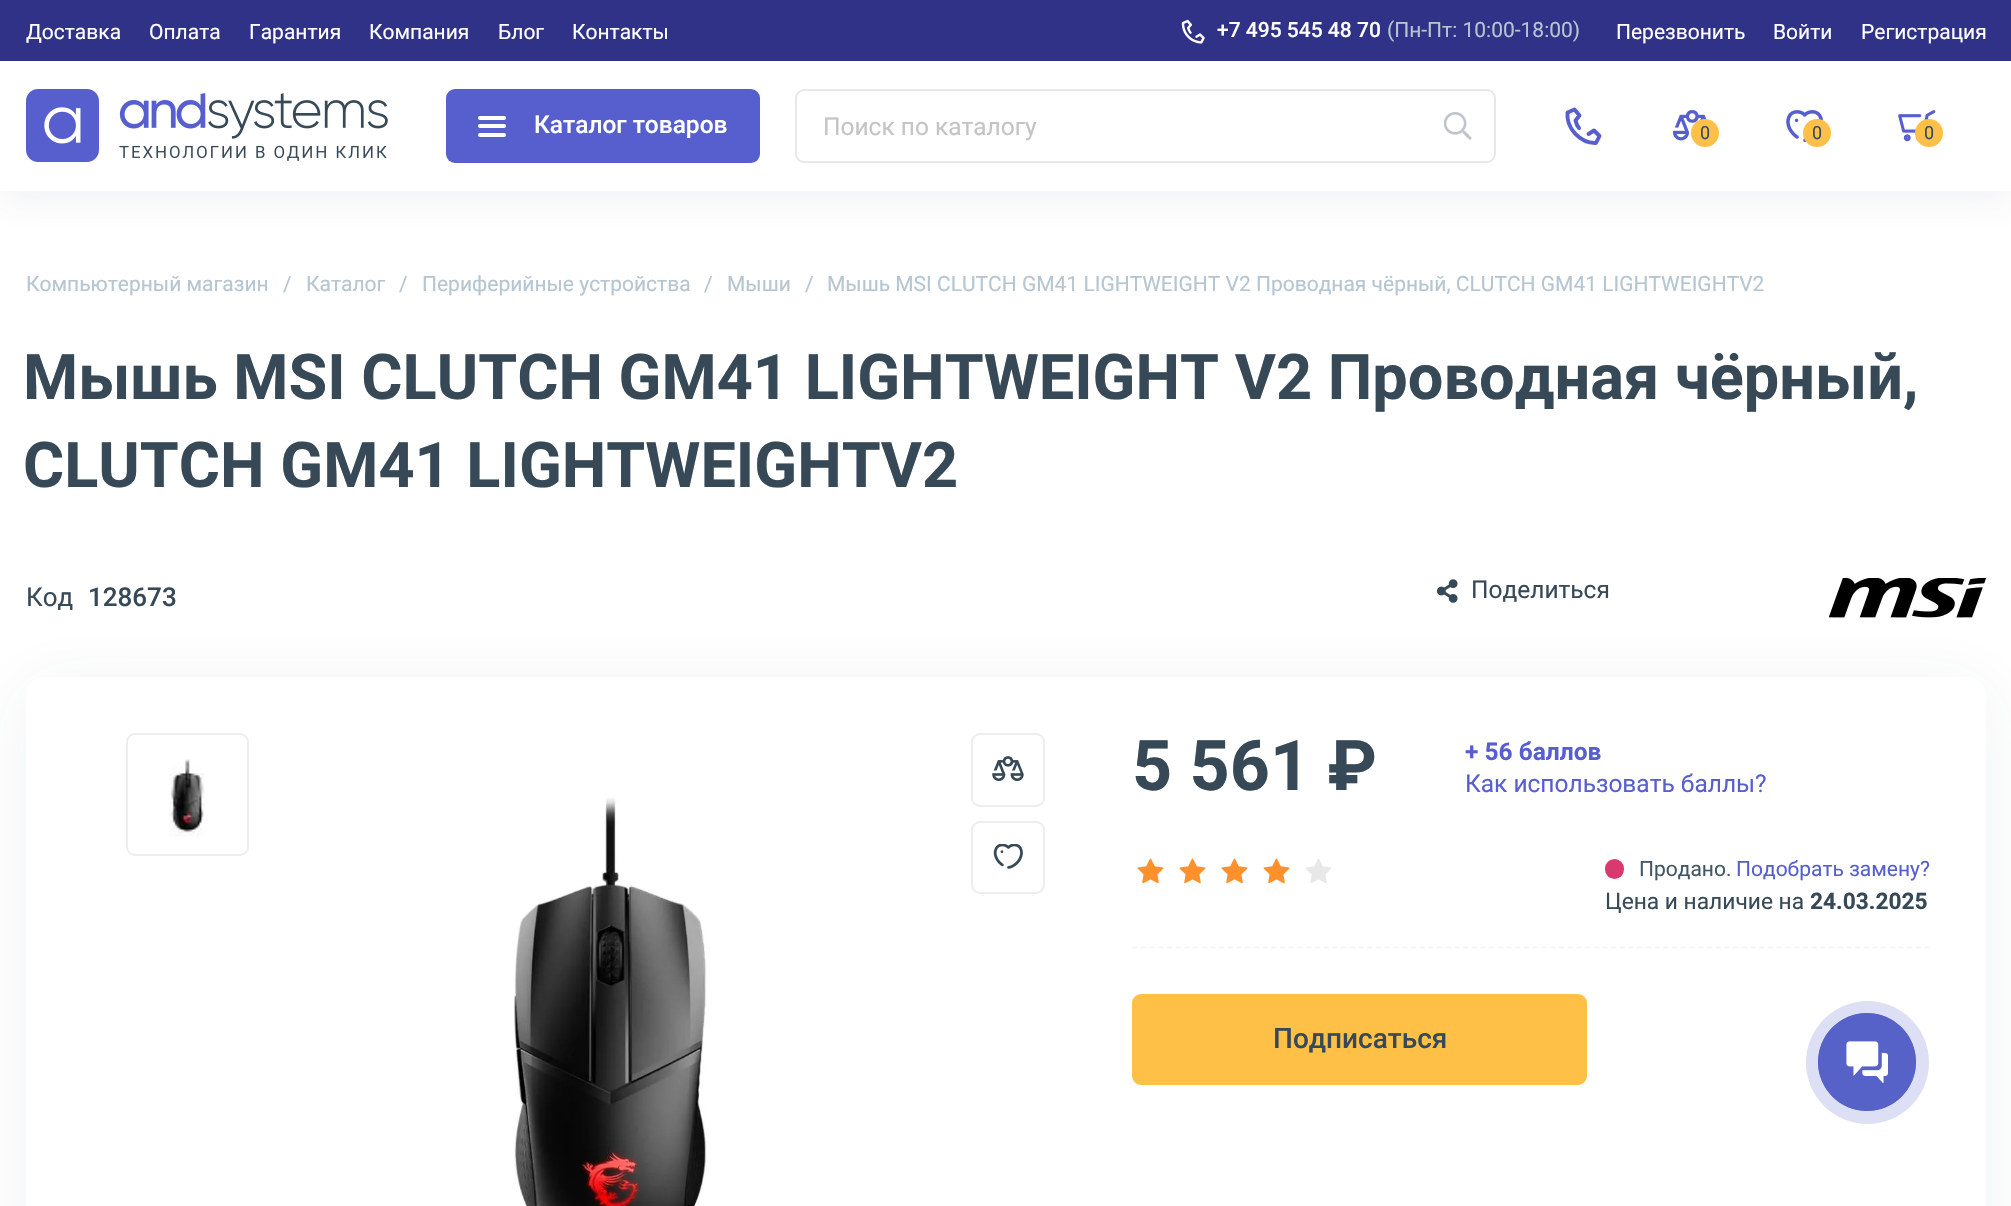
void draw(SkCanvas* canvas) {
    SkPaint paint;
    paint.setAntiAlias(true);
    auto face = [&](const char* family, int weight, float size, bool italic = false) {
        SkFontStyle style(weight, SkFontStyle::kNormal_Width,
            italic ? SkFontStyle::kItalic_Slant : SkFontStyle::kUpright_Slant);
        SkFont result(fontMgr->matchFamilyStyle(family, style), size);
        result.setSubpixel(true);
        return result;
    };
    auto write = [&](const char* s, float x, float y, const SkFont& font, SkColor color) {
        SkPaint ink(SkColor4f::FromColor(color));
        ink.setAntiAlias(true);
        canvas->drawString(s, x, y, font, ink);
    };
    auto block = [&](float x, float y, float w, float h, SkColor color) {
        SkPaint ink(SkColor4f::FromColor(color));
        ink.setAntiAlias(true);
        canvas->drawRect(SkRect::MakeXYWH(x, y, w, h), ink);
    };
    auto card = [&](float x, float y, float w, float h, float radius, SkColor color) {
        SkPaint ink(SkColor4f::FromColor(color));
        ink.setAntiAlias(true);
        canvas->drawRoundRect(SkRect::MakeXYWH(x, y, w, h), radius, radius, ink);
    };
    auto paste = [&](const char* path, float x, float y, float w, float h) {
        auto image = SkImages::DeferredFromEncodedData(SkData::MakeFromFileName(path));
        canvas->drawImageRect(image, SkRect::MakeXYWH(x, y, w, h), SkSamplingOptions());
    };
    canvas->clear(SK_ColorWHITE);
    paint.setColor(SkColorSetARGB(18, 56, 69, 94));
    paint.setMaskFilter(SkMaskFilter::MakeBlur(kNormal_SkBlurStyle, 17.5f));
    canvas->drawRect(SkRect::MakeXYWH(0, 72, 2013, 129), paint);
    paint.setMaskFilter(nullptr);
    block(0, 0, 2011, 61, SkColorSetRGB(47, 50, 134));
    auto kFont1 = face("Roboto", 400, 21);
    write("Доставка", 26, 39, kFont1, SK_ColorWHITE);
    write("Оплата", 149, 39, kFont1, SK_ColorWHITE);
    write("Гарантия", 249, 39, kFont1, SK_ColorWHITE);
    write("Компания", 369, 39, kFont1, SK_ColorWHITE);
    write("Блог", 498, 39, kFont1, SK_ColorWHITE);
    write("Контакты", 572, 39, kFont1, SK_ColorWHITE);
    paste("pic1.png", 1181, 19, 24, 25);
    auto kFont2 = face("Roboto", 500, 21);
    write("+7 495 545 48 70", 1217, 37, kFont2, SK_ColorWHITE);
    write("(Пн-Пт: 10:00-18:00)", 1387, 37, kFont1, SkColorSetRGB(181, 197, 209));
    write("Перезвонить", 1616, 39, kFont1, SK_ColorWHITE);
    write("Войти", 1773, 39, kFont1, SK_ColorWHITE);
    write("Регистрация", 1861, 39, kFont1, SK_ColorWHITE);
    block(0, 61, 2011, 130, SK_ColorWHITE);
    paste("pic2.png", 26, 89, 362, 73);
    card(446, 89, 314, 74, 9, SkColorSetRGB(87, 95, 207));
    card(478, 116, 28, 4, 2, SK_ColorWHITE);
    card(478, 124, 28, 4, 2, SK_ColorWHITE);
    card(478, 133, 28, 4, 2, SK_ColorWHITE);
    auto kFont3 = face("Roboto", 500, 24.5f);
    write("Каталог товаров", 534, 133, kFont3, SK_ColorWHITE);
    paint.setStyle(SkPaint::kStroke_Style);
    paint.setStrokeWidth(2);
    paint.setColor(SkColorSetRGB(232, 232, 232));
    canvas->drawRoundRect(SkRect::MakeXYWH(796, 90, 699, 72), 8, 8, paint);
    auto kFont4 = face("Roboto", 400, 24.5f);
    write("Поиск по каталогу", 823, 135, kFont4, SkColorSetRGB(196, 196, 196));
    paste("pic3.png", 1444, 112, 28, 28);
    paint.setStrokeWidth(3.9f);
    paint.setStrokeCap(SkPaint::kRound_Cap);
    paint.setStrokeJoin(SkPaint::kRound_Join);
    paint.setColor(SkColorSetRGB(87, 95, 207));
    canvas->drawPath(SkPathBuilder().moveTo(1588.5f, 134).lineTo(1594, 130.5f).lineTo(1599.5f, 136).lineTo(1596, 143).cubicTo(1580.5f, 143.5f, 1566, 128.5f, 1567.5f, 112.5f).lineTo(1574.5f, 109.5f).lineTo(1579.5f, 115.5f).lineTo(1575.5f, 120.5f).cubicTo(1575.5f, 120.5f, 1576.5f, 125, 1579, 128).detach(), paint);
    paste("pic4.png", 1673, 110, 34, 31);
    paint.setStyle(SkPaint::kFill_Style);
    paint.setColor(SkColorSetRGB(255, 192, 72));
    canvas->drawCircle(1705, 133, 14, paint);
    auto kFont5 = face("Roboto", 400, 18);
    write("0", 1700, 139, kFont5, SkColorSetRGB(55, 73, 87));
    paste("pic5.png", 1786, 110, 38, 32);
    canvas->drawCircle(1817, 133, 14, paint);
    write("0", 1812, 139, kFont5, SkColorSetRGB(55, 73, 87));
    paste("pic6.png", 1898, 110, 38, 32);
    canvas->drawCircle(1929, 133, 14, paint);
    write("0", 1924, 139, kFont5, SkColorSetRGB(55, 73, 87));
    write("Компьютерный магазин", 26, 291, kFont1, SkColorSetRGB(181, 197, 209));
    write("/", 283, 291, kFont1, SkColorSetRGB(181, 197, 209));
    write("Каталог", 306, 291, kFont1, SkColorSetRGB(181, 197, 209));
    write("/", 399, 291, kFont1, SkColorSetRGB(181, 197, 209));
    write("Периферийные устройства", 422, 291, kFont1, SkColorSetRGB(181, 197, 209));
    write("/", 704, 291, kFont1, SkColorSetRGB(181, 197, 209));
    write("Мыши", 727, 291, kFont1, SkColorSetRGB(181, 197, 209));
    write("/", 805, 291, kFont1, SkColorSetRGB(181, 197, 209));
    write("Мышь MSI CLUTCH GM41 LIGHTWEIGHT V2 Проводная чёрный, CLUTCH GM41 LIGHTWEIGHTV2", 827, 291, kFont1, SkColorSetRGB(181, 197, 209));
    auto kFont6 = face("Roboto", 700, 63);
    write("Мышь MSI CLUTCH GM41 LIGHTWEIGHT V2 Проводная чёрный,", 23, 399, kFont6, SkColorSetRGB(55, 73, 87));
    write("CLUTCH GM41 LIGHTWEIGHTV2", 23, 487, kFont6, SkColorSetRGB(55, 73, 87));
    auto kFont7 = face("Roboto", 400, 26);
    write("Код", 26, 606, kFont7, SkColorSetRGB(55, 73, 87));
    auto kFont8 = face("Roboto", 500, 26);
    write("128673", 88, 606, kFont8, SkColorSetRGB(55, 73, 87));
    paste("pic8.png", 1829, 578, 157, 40);
    paint.setColor(SkColorSetARGB(18, 56, 69, 94));
    paint.setMaskFilter(SkMaskFilter::MakeBlur(kNormal_SkBlurStyle, 35));
    canvas->drawRoundRect(SkRect::MakeXYWH(26, 688, 1960, 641), 18, 18, paint);
    paint.setMaskFilter(nullptr);
    paste("pic7.png", 1437, 579, 21, 24);
    write("Поделиться", 1471, 598, kFont4, SkColorSetRGB(55, 73, 87));
    card(26, 677, 1960, 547, 18, SK_ColorWHITE);
    paint.setStyle(SkPaint::kStroke_Style);
    paint.setStrokeWidth(2);
    paint.setStrokeCap(SkPaint::kButt_Cap);
    paint.setStrokeJoin(SkPaint::kMiter_Join);
    paint.setColor(SkColorSetRGB(238, 238, 238));
    canvas->drawRoundRect(SkRect::MakeXYWH(127, 734, 121, 121), 8, 8, paint);
    paste("pic9.png", 169, 759, 36, 78);
    paste("pic10.png", 514, 797, 194, 409);
    paste("pic11.png", 992, 756, 32, 25);
    canvas->drawRoundRect(SkRect::MakeXYWH(972, 734, 72, 72), 8, 8, paint);
    paste("pic12.png", 993, 844, 30, 25);
    canvas->drawRoundRect(SkRect::MakeXYWH(972, 822, 72, 71), 8, 8, paint);
    auto kFont9 = face("Roboto", 700, 70);
    write("5 561 ₽", 1132, 790, kFont9, SkColorSetRGB(55, 73, 87));
    auto kFont10 = face("Roboto", 700, 24.5f);
    write("+ 56 баллов", 1465, 760, kFont10, SkColorSetRGB(87, 95, 207));
    write("Как использовать баллы?", 1465, 792, kFont4, SkColorSetRGB(87, 95, 207));
    paint.setStrokeWidth(1.8f);
    paint.setColor(SkColorSetRGB(243, 245, 247));
    paint.setPathEffect(SkDashPathEffect::Make({{5.25f, 3.46f}}, 0));
    canvas->drawPath(SkPathBuilder().moveTo(1132, 947.5f).lineTo(1930, 947.5f).detach(), paint);
    paint.setPathEffect(nullptr);
    paste("pic13.png", 1137, 858, 27, 26);
    paste("pic13.png", 1179, 858, 27, 26);
    paste("pic13.png", 1221, 858, 27, 26);
    paste("pic13.png", 1263, 858, 27, 26);
    paste("pic14.png", 1305, 858, 27, 25);
    card(1605, 859, 19, 20, 9.5f, SkColorSetRGB(218, 57, 112));
    write("Продано.", 1639, 876, kFont1, SkColorSetRGB(66, 87, 102));
    write("Подобрать замену?", 1736, 876, kFont1, SkColorSetRGB(87, 95, 207));
    auto kFont11 = face("Roboto", 400, 22.75f);
    write("Цена и наличие на", 1605, 909, kFont11, SkColorSetRGB(55, 73, 87));
    auto kFont12 = face("Roboto", 700, 22.75f);
    write("24.03.2025", 1810, 909, kFont12, SkColorSetRGB(55, 73, 87));
    paint.setStyle(SkPaint::kFill_Style);
    paint.setColor(SkColorSetRGB(255, 192, 72));
    canvas->drawRoundRect(SkRect::MakeXYWH(1133, 995, 453, 89), 8, 8, paint);
    paint.setStyle(SkPaint::kStroke_Style);
    paint.setStrokeWidth(2);
    canvas->drawRoundRect(SkRect::MakeXYWH(1133, 995, 453, 89), 8, 8, paint);
    auto kFont13 = face("Roboto", 500, 28);
    write("Подписаться", 1273, 1048, kFont13, SkColorSetRGB(55, 73, 87));
    paint.setStyle(SkPaint::kFill_Style);
    paint.setColor(SkColorSetRGB(221, 224, 244));
    canvas->drawCircle(1867.5f, 1062.5f, 61.5f, paint);
    paint.setStyle(SkPaint::kStroke_Style);
    paint.setStrokeWidth(1);
    paint.setColor(SkColorSetRGB(87, 98, 200));
    canvas->drawCircle(1867, 1062, 48.5f, paint);
    paint.setStyle(SkPaint::kFill_Style);
    canvas->drawCircle(1867, 1062, 49, paint);
    paste("pic15.png", 1846, 1041, 42, 42);
}
